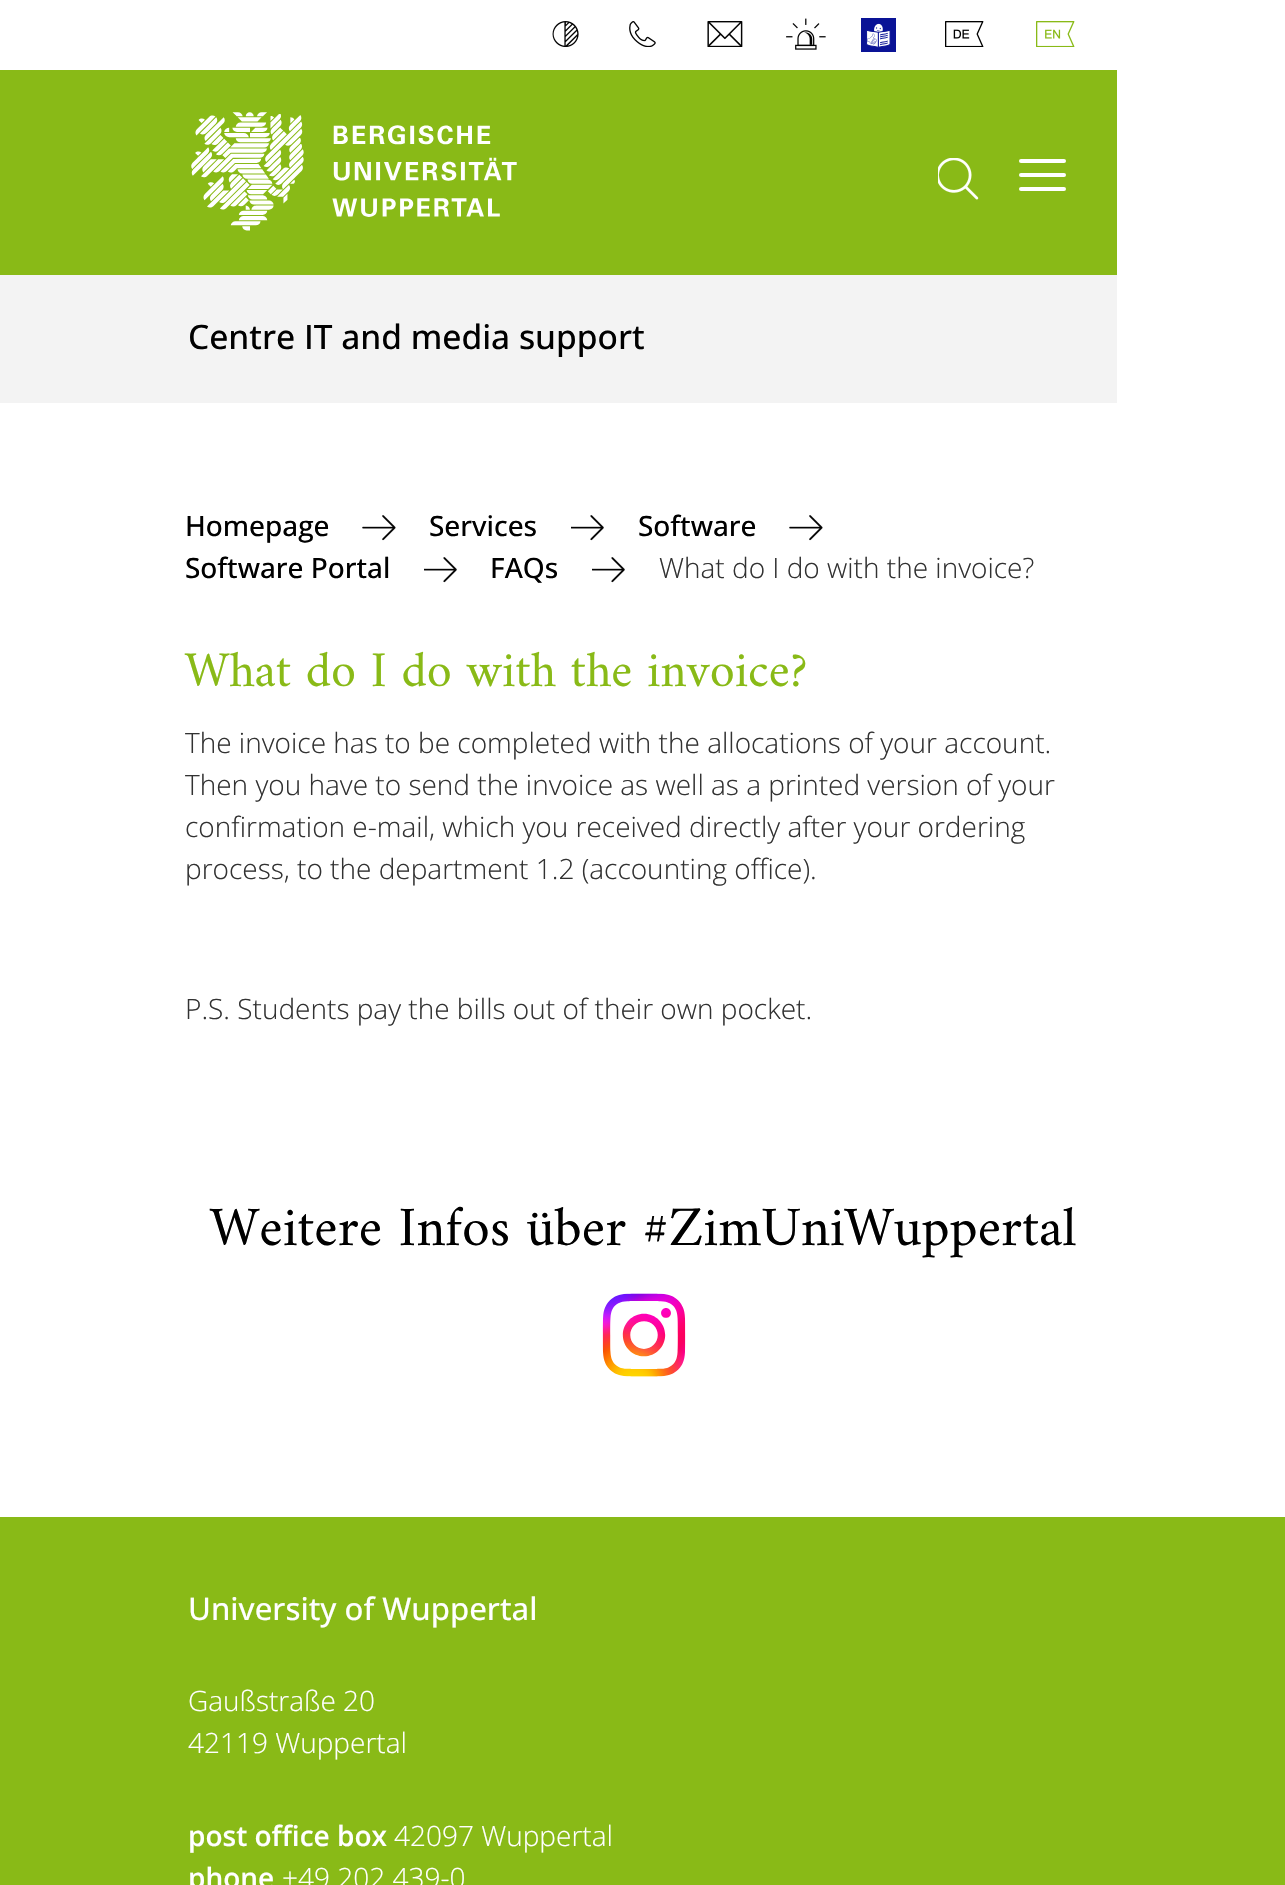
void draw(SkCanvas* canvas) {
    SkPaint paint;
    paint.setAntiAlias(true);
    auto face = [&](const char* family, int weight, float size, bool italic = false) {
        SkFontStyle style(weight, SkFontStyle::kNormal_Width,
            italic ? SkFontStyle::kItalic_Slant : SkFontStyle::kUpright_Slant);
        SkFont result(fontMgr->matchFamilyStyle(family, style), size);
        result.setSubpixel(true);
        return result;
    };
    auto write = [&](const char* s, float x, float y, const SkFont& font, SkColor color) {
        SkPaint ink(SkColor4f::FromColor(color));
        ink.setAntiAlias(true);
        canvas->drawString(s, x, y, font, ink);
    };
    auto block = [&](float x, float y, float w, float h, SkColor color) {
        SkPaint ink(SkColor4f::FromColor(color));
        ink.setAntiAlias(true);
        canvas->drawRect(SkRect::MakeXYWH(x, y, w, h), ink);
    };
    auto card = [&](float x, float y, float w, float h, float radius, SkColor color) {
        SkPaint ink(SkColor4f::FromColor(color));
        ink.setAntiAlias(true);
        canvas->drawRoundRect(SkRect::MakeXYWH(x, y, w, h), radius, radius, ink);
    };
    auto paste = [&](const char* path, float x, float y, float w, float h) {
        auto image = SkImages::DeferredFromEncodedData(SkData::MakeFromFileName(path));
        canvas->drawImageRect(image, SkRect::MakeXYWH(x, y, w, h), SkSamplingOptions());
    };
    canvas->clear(SK_ColorWHITE);
    paste("pic1.png", 552, 21, 27, 26);
    paste("pic2.png", 629, 21, 27, 26);
    paste("pic3.png", 707, 21, 36, 26);
    paste("pic4.png", 786, 18, 40, 32);
    paste("pic5.png", 861, 18, 35, 34);
    paste("pic6.png", 945, 21, 39, 26);
    paste("pic7.png", 1036, 21, 39, 26);
    block(0, 70, 1117, 205, SkColorSetRGB(137, 186, 23));
    paste("pic8.png", 191, 112, 326, 119);
    paste("pic9.png", 938, 158, 41, 42);
    card(1019, 159, 47, 4, 2, SK_ColorWHITE);
    card(1019, 173, 47, 4, 2, SK_ColorWHITE);
    card(1019, 187, 47, 4, 2, SK_ColorWHITE);
    block(0, 275, 1117, 128, SkColorSetRGB(243, 243, 243));
    auto kFont1 = face("Open Sans", 500, 33.6f);
    write("Centre IT and media support", 188, 349, kFont1, SK_ColorBLACK);
    auto kFont2 = face("Open Sans", 500, 28);
    write("Homepage", 185, 536, kFont2, SK_ColorBLACK);
    paste("pic10.png", 362, 515, 34, 26);
    write("Services", 429, 536, kFont2, SK_ColorBLACK);
    paste("pic11.png", 571, 515, 33, 26);
    write("Software", 638, 536, kFont2, SK_ColorBLACK);
    paste("pic10.png", 789, 515, 34, 26);
    write("Software Portal", 185, 578, kFont2, SK_ColorBLACK);
    paste("pic11.png", 424, 557, 33, 26);
    write("FAQs", 490, 578, kFont2, SK_ColorBLACK);
    paste("pic11.png", 592, 557, 33, 26);
    auto kFont3 = face("Open Sans", 300, 28);
    write("What do I do with the invoice?", 659, 578, kFont3, SkColorSetRGB(50, 50, 50));
    auto kFont4 = face("Amiri", 400, 50.4f);
    write("What do I do with the invoice?", 185, 686, kFont4, SkColorSetRGB(137, 186, 23));
    write("The invoice has to be completed with the allocations of your account.", 185, 753, kFont3, SkColorSetRGB(50, 50, 50));
    write("Then you have to send the invoice as well as a printed version of your", 185, 795, kFont3, SkColorSetRGB(50, 50, 50));
    write("confirmation e-mail, which you received directly after your ordering", 185, 837, kFont3, SkColorSetRGB(50, 50, 50));
    write("process, to the department 1.2 (accounting office).", 185, 879, kFont3, SkColorSetRGB(50, 50, 50));
    write("P.S. Students pay the bills out of their own pocket.", 185, 1019, kFont3, SkColorSetRGB(50, 50, 50));
    auto kFont5 = face("Amiri", 400, 56);
    write("Weitere Infos über #ZimUniWuppertal", 210, 1245, kFont5, SK_ColorBLACK);
    paste("pic12.png", 602, 1293, 84, 84);
    block(0, 1517, 1285, 368, SkColorSetRGB(137, 186, 23));
    auto kFont6 = face("Open Sans", 500, 31.1f);
    write("University of Wuppertal", 188, 1620, kFont6, SK_ColorWHITE);
    write("Gaußstraße 20", 188, 1711, kFont3, SK_ColorWHITE);
    write("42119 Wuppertal", 188, 1753, kFont3, SK_ColorWHITE);
    auto kFont7 = face("Open Sans", 600, 28);
    write("post office box", 188, 1846, kFont7, SK_ColorWHITE);
    write("42097 Wuppertal", 394, 1846, kFont3, SK_ColorWHITE);
    write("phone", 188, 1888, kFont7, SK_ColorWHITE);
    write("+49 202 439-0", 282, 1888, kFont3, SK_ColorWHITE);
}
